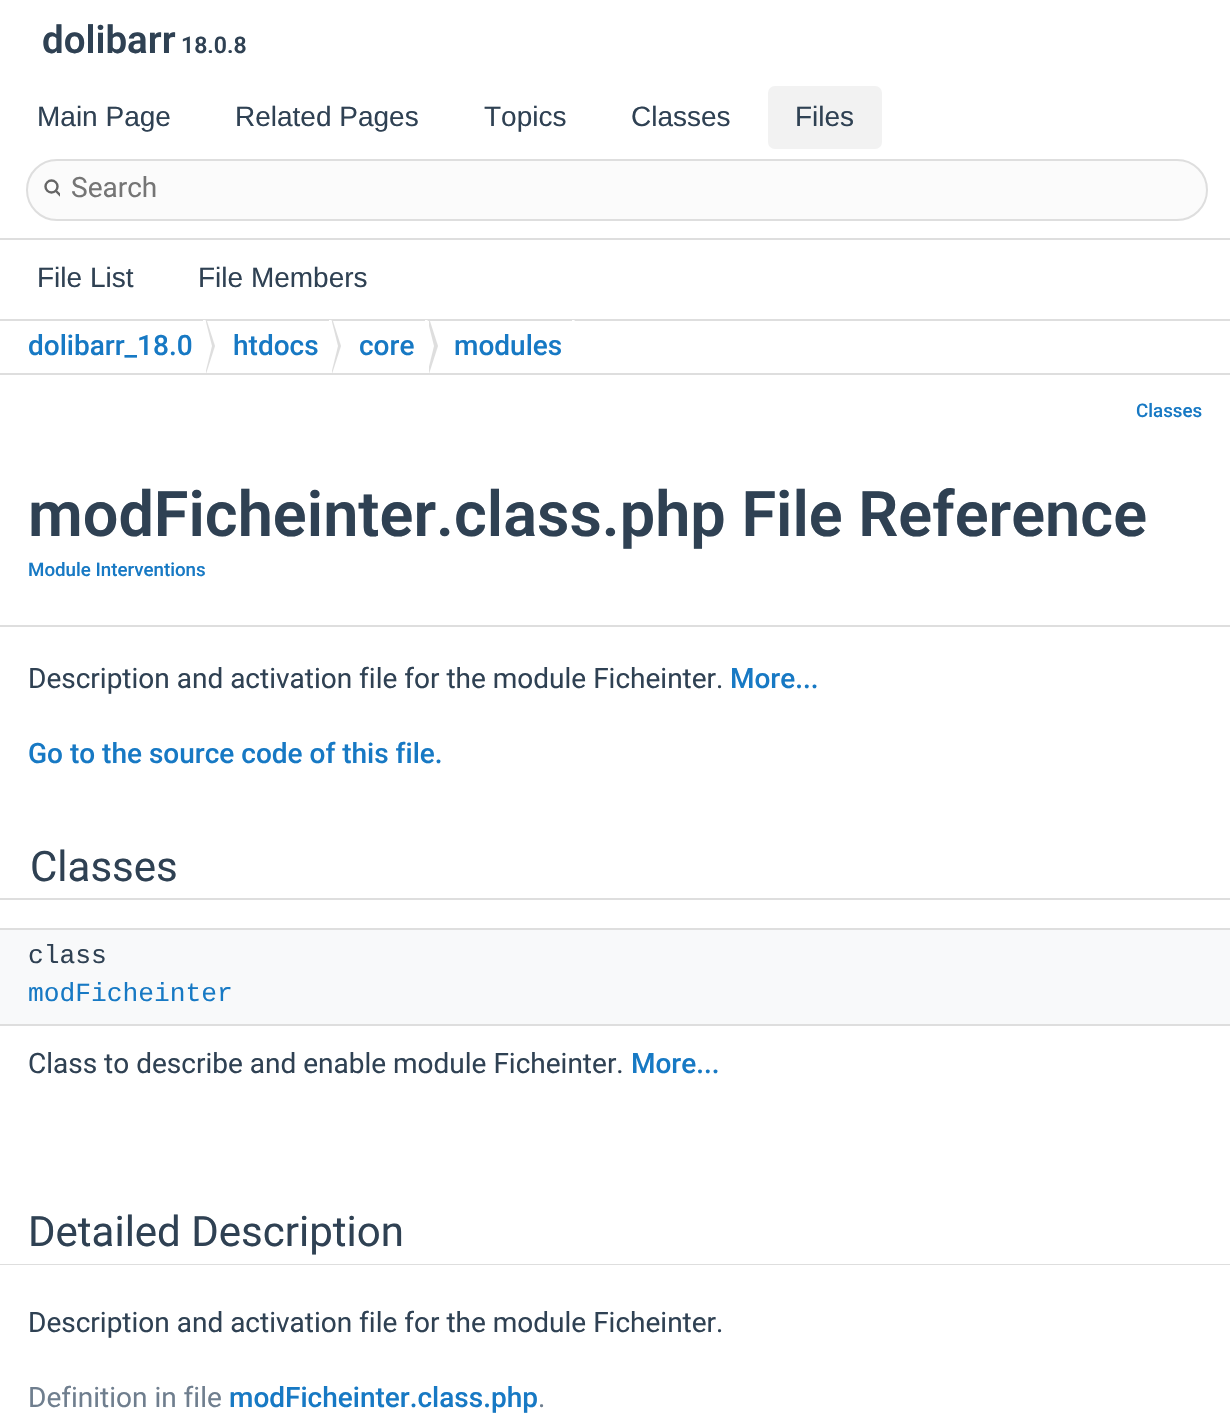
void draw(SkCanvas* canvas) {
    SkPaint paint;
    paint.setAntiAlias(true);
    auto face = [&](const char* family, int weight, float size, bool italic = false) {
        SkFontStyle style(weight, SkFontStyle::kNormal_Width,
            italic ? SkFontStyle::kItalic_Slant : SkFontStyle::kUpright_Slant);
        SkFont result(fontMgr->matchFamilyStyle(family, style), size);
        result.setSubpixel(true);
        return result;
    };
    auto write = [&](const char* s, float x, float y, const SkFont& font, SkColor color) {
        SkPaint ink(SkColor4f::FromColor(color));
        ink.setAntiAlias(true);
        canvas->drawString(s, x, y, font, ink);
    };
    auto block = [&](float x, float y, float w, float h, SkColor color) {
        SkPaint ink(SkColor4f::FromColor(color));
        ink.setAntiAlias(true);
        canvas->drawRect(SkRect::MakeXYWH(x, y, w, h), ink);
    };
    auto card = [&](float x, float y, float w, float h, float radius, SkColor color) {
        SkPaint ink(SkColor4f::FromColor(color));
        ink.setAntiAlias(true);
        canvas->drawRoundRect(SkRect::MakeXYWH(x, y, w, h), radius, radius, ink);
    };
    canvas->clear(SK_ColorWHITE);
    block(0, 373, 1230, 2, SkColorSetRGB(222, 222, 222));
    auto kFont1 = face("Roboto", 600, 38.5f);
    write("dolibarr", 42, 53, kFont1, SkColorSetRGB(47, 65, 83));
    auto kFont2 = face("Roboto", 600, 23);
    write("18.0.8", 181, 53, kFont2, SkColorSetRGB(47, 65, 83));
    block(0, 238, 1230, 2, SkColorSetRGB(222, 222, 222));
    auto kFont3 = face("Liberation Sans", 400, 28);
    write("Main Page", 37, 126, kFont3, SkColorSetRGB(47, 65, 83));
    write("Related Pages", 235, 126, kFont3, SkColorSetRGB(47, 65, 83));
    write("Topics", 484, 126, kFont3, SkColorSetRGB(47, 65, 83));
    write("Classes", 631, 126, kFont3, SkColorSetRGB(47, 65, 83));
    card(768, 86, 114, 63, 7, SkColorSetRGB(242, 242, 242));
    write("Files", 795, 126, kFont3, SkColorSetRGB(47, 65, 83));
    paint.setColor(SkColorSetRGB(251, 251, 251));
    canvas->drawRoundRect(SkRect::MakeXYWH(27, 160, 1180, 60), 30, 30, paint);
    paint.setStyle(SkPaint::kStroke_Style);
    paint.setStrokeWidth(2);
    paint.setColor(SkColorSetRGB(222, 222, 222));
    canvas->drawRoundRect(SkRect::MakeXYWH(27, 160, 1180, 60), 30, 30, paint);
    paint.setStrokeWidth(2.4f);
    paint.setColor(SkColorSetRGB(101, 101, 101));
    canvas->drawCircle(51.5f, 186.5f, 6, paint);
    canvas->save();
    canvas->clipRect(SkRect::MakeXYWH(42, 172, 18, 33));
    paint.setStrokeCap(SkPaint::kRound_Cap);
    canvas->drawPath(SkPathBuilder().moveTo(56, 191).lineTo(61, 196).detach(), paint);
    canvas->restore();
    auto kFont4 = face("Roboto", 400, 28);
    write("Search", 71, 197, kFont4, SkColorSetRGB(117, 117, 117));
    write("File List", 37, 287, kFont3, SkColorSetRGB(47, 65, 83));
    write("File Members", 198, 287, kFont3, SkColorSetRGB(47, 65, 83));
    block(0, 319, 1230, 2, SkColorSetRGB(222, 222, 222));
    auto kFont5 = face("Roboto", 500, 28);
    write("dolibarr_18.0", 28, 355, kFont5, SkColorSetRGB(23, 121, 196));
    canvas->save();
    canvas->clipRect(SkRect::MakeXYWH(0, 320, 1230, 53));
    paint.setStyle(SkPaint::kFill_Style);
    paint.setColor(SkColorSetRGB(222, 222, 222));
    canvas->drawPath(SkPathBuilder().moveTo(206, 374).lineTo(206, 318).lineTo(215, 346).close().detach(), paint);
    paint.setColor(SK_ColorWHITE);
    canvas->drawPath(SkPathBuilder().moveTo(203, 383).lineTo(203, 310).lineTo(212, 346).close().detach(), paint);
    canvas->restore();
    write("htdocs", 233, 355, kFont5, SkColorSetRGB(23, 121, 196));
    canvas->save();
    canvas->clipRect(SkRect::MakeXYWH(0, 320, 1230, 53));
    paint.setColor(SkColorSetRGB(222, 222, 222));
    canvas->drawPath(SkPathBuilder().moveTo(332, 374).lineTo(332, 318).lineTo(341, 346).close().detach(), paint);
    paint.setColor(SK_ColorWHITE);
    canvas->drawPath(SkPathBuilder().moveTo(329, 383).lineTo(329, 310).lineTo(338, 346).close().detach(), paint);
    canvas->restore();
    write("core", 359, 355, kFont5, SkColorSetRGB(23, 121, 196));
    canvas->save();
    canvas->clipRect(SkRect::MakeXYWH(0, 320, 1230, 53));
    paint.setColor(SkColorSetRGB(222, 222, 222));
    canvas->drawPath(SkPathBuilder().moveTo(429, 374).lineTo(429, 318).lineTo(438, 346).close().detach(), paint);
    paint.setColor(SK_ColorWHITE);
    canvas->drawPath(SkPathBuilder().moveTo(425, 383).lineTo(425, 310).lineTo(434, 346).close().detach(), paint);
    canvas->restore();
    write("modules", 454, 355, kFont5, SkColorSetRGB(23, 121, 196));
    canvas->save();
    canvas->clipRect(SkRect::MakeXYWH(0, 320, 1230, 53));
    canvas->drawPath(SkPathBuilder().moveTo(572, 383).lineTo(572, 310).lineTo(581, 346).close().detach(), paint);
    canvas->restore();
    block(0, 625, 1230, 2, SkColorSetRGB(222, 222, 222));
    auto kFont6 = face("Roboto", 500, 18.75f);
    write("Classes", 1136, 417, kFont6, SkColorSetRGB(23, 121, 196));
    auto kFont7 = face("Roboto", 600, 63);
    write("modFicheinter.class.php File Reference", 28, 536, kFont7, SkColorSetRGB(47, 65, 83));
    write("Module Interventions", 28, 576, kFont6, SkColorSetRGB(23, 121, 196));
    write("Description and activation file for the module Ficheinter.", 28, 688, kFont4, SkColorSetRGB(47, 65, 83));
    write("More...", 730, 688, kFont5, SkColorSetRGB(23, 121, 196));
    write("Go to the source code of this file.", 28, 763, kFont5, SkColorSetRGB(23, 121, 196));
    paint.setColor(SkColorSetRGB(222, 222, 222));
    canvas->drawPath(SkPathBuilder().moveTo(-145, 830).lineTo(-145, 900).lineTo(1026, 900).lineTo(1026, 898).lineTo(30, 898).lineTo(30, 830).close().detach(), paint);
    canvas->drawPath(SkPathBuilder().moveTo(205, 898).lineTo(205, 900).lineTo(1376, 900).lineTo(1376, 830).lineTo(1200, 830).lineTo(1200, 898).close().detach(), paint);
    paint.setColor(SK_ColorWHITE);
    canvas->drawPath(SkPathBuilder().moveTo(-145, 828).lineTo(-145, 898).lineTo(1026, 898).lineTo(30, 898).lineTo(30, 828).close().detach(), paint);
    canvas->drawPath(SkPathBuilder().moveTo(205, 898).lineTo(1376, 898).lineTo(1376, 828).lineTo(1200, 828).lineTo(1200, 898).close().detach(), paint);
    auto kFont8 = face("Roboto", 400, 42);
    write("Classes", 30, 881, kFont8, SkColorSetRGB(47, 65, 83));
    block(0, 930, 1230, 94, SkColorSetRGB(248, 249, 250));
    block(0, 928, 1230, 2, SkColorSetRGB(222, 222, 222));
    auto kFont9 = face("Liberation Mono", 400, 26.25f);
    write("class", 28, 963, kFont9, SkColorSetRGB(47, 65, 83));
    block(0, 1024, 1230, 2, SkColorSetRGB(222, 222, 222));
    write("modFicheinter", 28, 1001, kFont9, SkColorSetRGB(23, 121, 196));
    write("Class to describe and enable module Ficheinter.", 28, 1073, kFont4, SkColorSetRGB(47, 65, 83));
    write("More...", 631, 1073, kFont5, SkColorSetRGB(23, 121, 196));
    paint.setColor(SkColorSetRGB(222, 222, 222));
    canvas->drawPath(SkPathBuilder().moveTo(-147, 1195).lineTo(-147, 1265).lineTo(1027, 1265).lineTo(1027, 1264).lineTo(28, 1264).lineTo(28, 1195).close().detach(), paint);
    canvas->drawPath(SkPathBuilder().moveTo(203, 1264).lineTo(203, 1265).lineTo(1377, 1265).lineTo(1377, 1195).lineTo(1202, 1195).lineTo(1202, 1264).close().detach(), paint);
    paint.setColor(SK_ColorWHITE);
    canvas->drawPath(SkPathBuilder().moveTo(-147, 1194).lineTo(-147, 1264).lineTo(1027, 1264).lineTo(28, 1264).lineTo(28, 1194).close().detach(), paint);
    canvas->drawPath(SkPathBuilder().moveTo(203, 1264).lineTo(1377, 1264).lineTo(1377, 1194).lineTo(1202, 1194).lineTo(1202, 1264).close().detach(), paint);
    write("Detailed Description", 28, 1246, kFont8, SkColorSetRGB(47, 65, 83));
    write("Description and activation file for the module Ficheinter.", 28, 1332, kFont4, SkColorSetRGB(47, 65, 83));
    write("Definition in file", 28, 1407, kFont4, SkColorSetRGB(111, 126, 142));
    write("modFicheinter.class.php", 229, 1407, kFont5, SkColorSetRGB(23, 121, 196));
    write(".", 538, 1407, kFont4, SkColorSetRGB(111, 126, 142));
}
